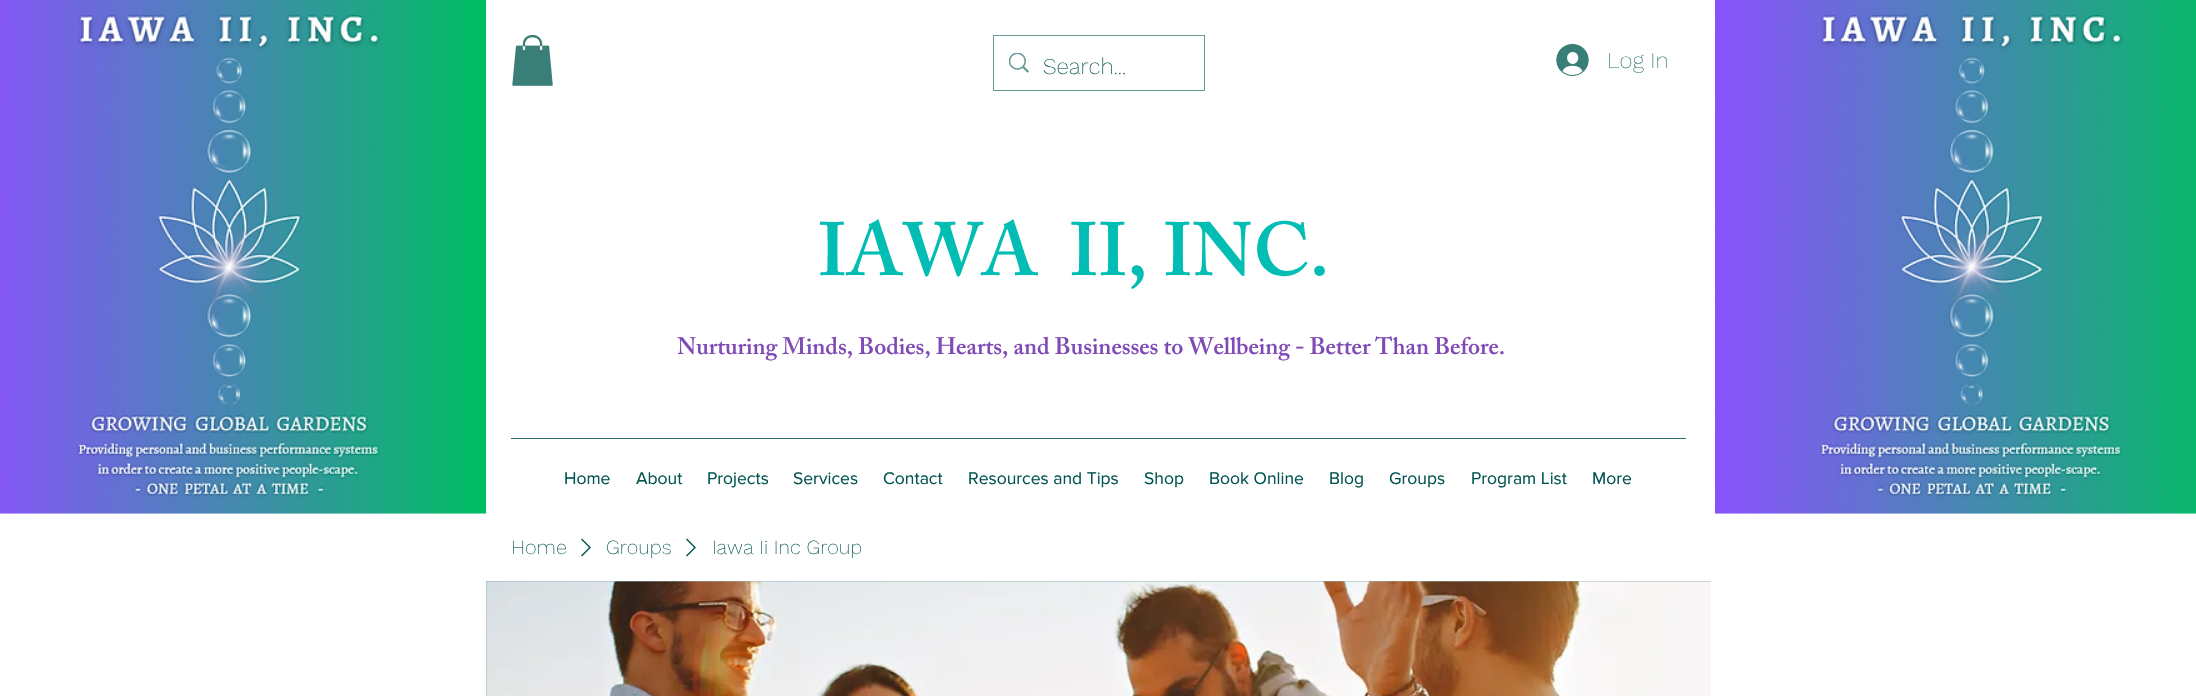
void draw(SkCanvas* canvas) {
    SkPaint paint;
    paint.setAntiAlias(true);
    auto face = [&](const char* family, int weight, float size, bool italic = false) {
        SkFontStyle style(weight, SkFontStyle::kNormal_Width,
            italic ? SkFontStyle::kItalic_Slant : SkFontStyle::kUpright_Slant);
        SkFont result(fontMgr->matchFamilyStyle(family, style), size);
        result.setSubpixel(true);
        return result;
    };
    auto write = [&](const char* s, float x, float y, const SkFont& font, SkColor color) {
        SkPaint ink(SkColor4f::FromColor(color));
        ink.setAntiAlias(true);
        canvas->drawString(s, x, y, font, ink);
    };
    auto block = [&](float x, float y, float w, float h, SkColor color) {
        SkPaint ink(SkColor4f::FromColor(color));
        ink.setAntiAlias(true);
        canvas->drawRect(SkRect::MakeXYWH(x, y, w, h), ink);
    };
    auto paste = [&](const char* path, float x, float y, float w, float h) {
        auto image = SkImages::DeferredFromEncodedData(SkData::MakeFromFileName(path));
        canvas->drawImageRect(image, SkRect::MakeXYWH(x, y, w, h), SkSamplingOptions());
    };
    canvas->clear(SK_ColorWHITE);
    paste("pic1.png", 0, 0, 487, 514);
    paste("pic2.png", 512, 35, 41, 51);
    paint.setStyle(SkPaint::kStroke_Style);
    paint.setStrokeWidth(1);
    paint.setColor(SkColorSetRGB(103, 152, 150));
    canvas->drawRect(SkRect::MakeXYWH(993.5f, 35.5f, 211, 55), paint);
    paste("pic3.png", 1009, 53, 20, 20);
    auto kFont1 = face("Work Sans", 200, 22.5f);
    write("Search...", 1043, 74, kFont1, SkColorSetRGB(1, 84, 80));
    paste("pic4.png", 1556, 44, 33, 32);
    write("Log In", 1607, 68, kFont1, SkColorSetRGB(57, 127, 119));
    paste("pic5.png", 1715, 0, 481, 514);
    auto kFont2 = face("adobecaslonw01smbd", 600, 75);
    write("IAWA  II, INC.", 818, 275, kFont2, SkColorSetRGB(2, 189, 180));
    auto kFont3 = face("adobecaslonw01smbd", 600, 23.75f);
    write("Nurturing Minds, Bodies, Hearts, and Businesses to Wellbeing - Better Than Before.", 677, 354, kFont3, SkColorSetRGB(128, 74, 182));
    block(511, 438, 1175, 1, SkColorSetRGB(39, 110, 106));
    auto kFont4 = face("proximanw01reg", 400, 17.5f);
    write("Home", 564, 484, kFont4, SkColorSetRGB(1, 84, 80));
    write("About", 636, 484, kFont4, SkColorSetRGB(1, 84, 80));
    write("Projects", 707, 484, kFont4, SkColorSetRGB(1, 84, 80));
    write("Services", 793, 484, kFont4, SkColorSetRGB(1, 84, 80));
    write("Contact", 883, 484, kFont4, SkColorSetRGB(1, 84, 80));
    write("Resources and Tips", 968, 484, kFont4, SkColorSetRGB(1, 84, 80));
    write("Shop", 1144, 484, kFont4, SkColorSetRGB(1, 84, 80));
    write("Book Online", 1209, 484, kFont4, SkColorSetRGB(1, 84, 80));
    write("Blog", 1329, 484, kFont4, SkColorSetRGB(1, 84, 80));
    write("Groups", 1389, 484, kFont4, SkColorSetRGB(1, 84, 80));
    write("Program List", 1471, 484, kFont4, SkColorSetRGB(1, 84, 80));
    write("More", 1592, 484, kFont4, SkColorSetRGB(1, 84, 80));
    auto kFont5 = face("Work Sans", 200, 20);
    write("Home", 511, 554, kFont5, SkColorSetRGB(1, 84, 80));
    paint.setStyle(SkPaint::kFill_Style);
    paint.setColor(SkColorSetRGB(1, 84, 80));
    canvas->drawPath(SkPathBuilder(SkPathFillType::kEvenOdd).moveTo(582, 538.5f).lineTo(591, 547.5f).lineTo(582, 556.5f).lineTo(581, 555.5f).lineTo(589, 547.5f).lineTo(581, 539.5f).close().detach(), paint);
    write("Groups", 606, 554, kFont5, SkColorSetRGB(1, 84, 80));
    canvas->drawPath(SkPathBuilder(SkPathFillType::kEvenOdd).moveTo(687, 538.5f).lineTo(696, 547.5f).lineTo(687, 556.5f).lineTo(686, 555.5f).lineTo(694, 547.5f).lineTo(686, 539.5f).close().detach(), paint);
    write("Iawa Ii Inc Group", 712, 554, kFont5, SkColorSetRGB(1, 84, 80));
    block(486, 581, 1225, 115, SkColorSetRGB(136, 178, 174));
    paste("pic6.png", 486, 581, 1225, 115);
}
